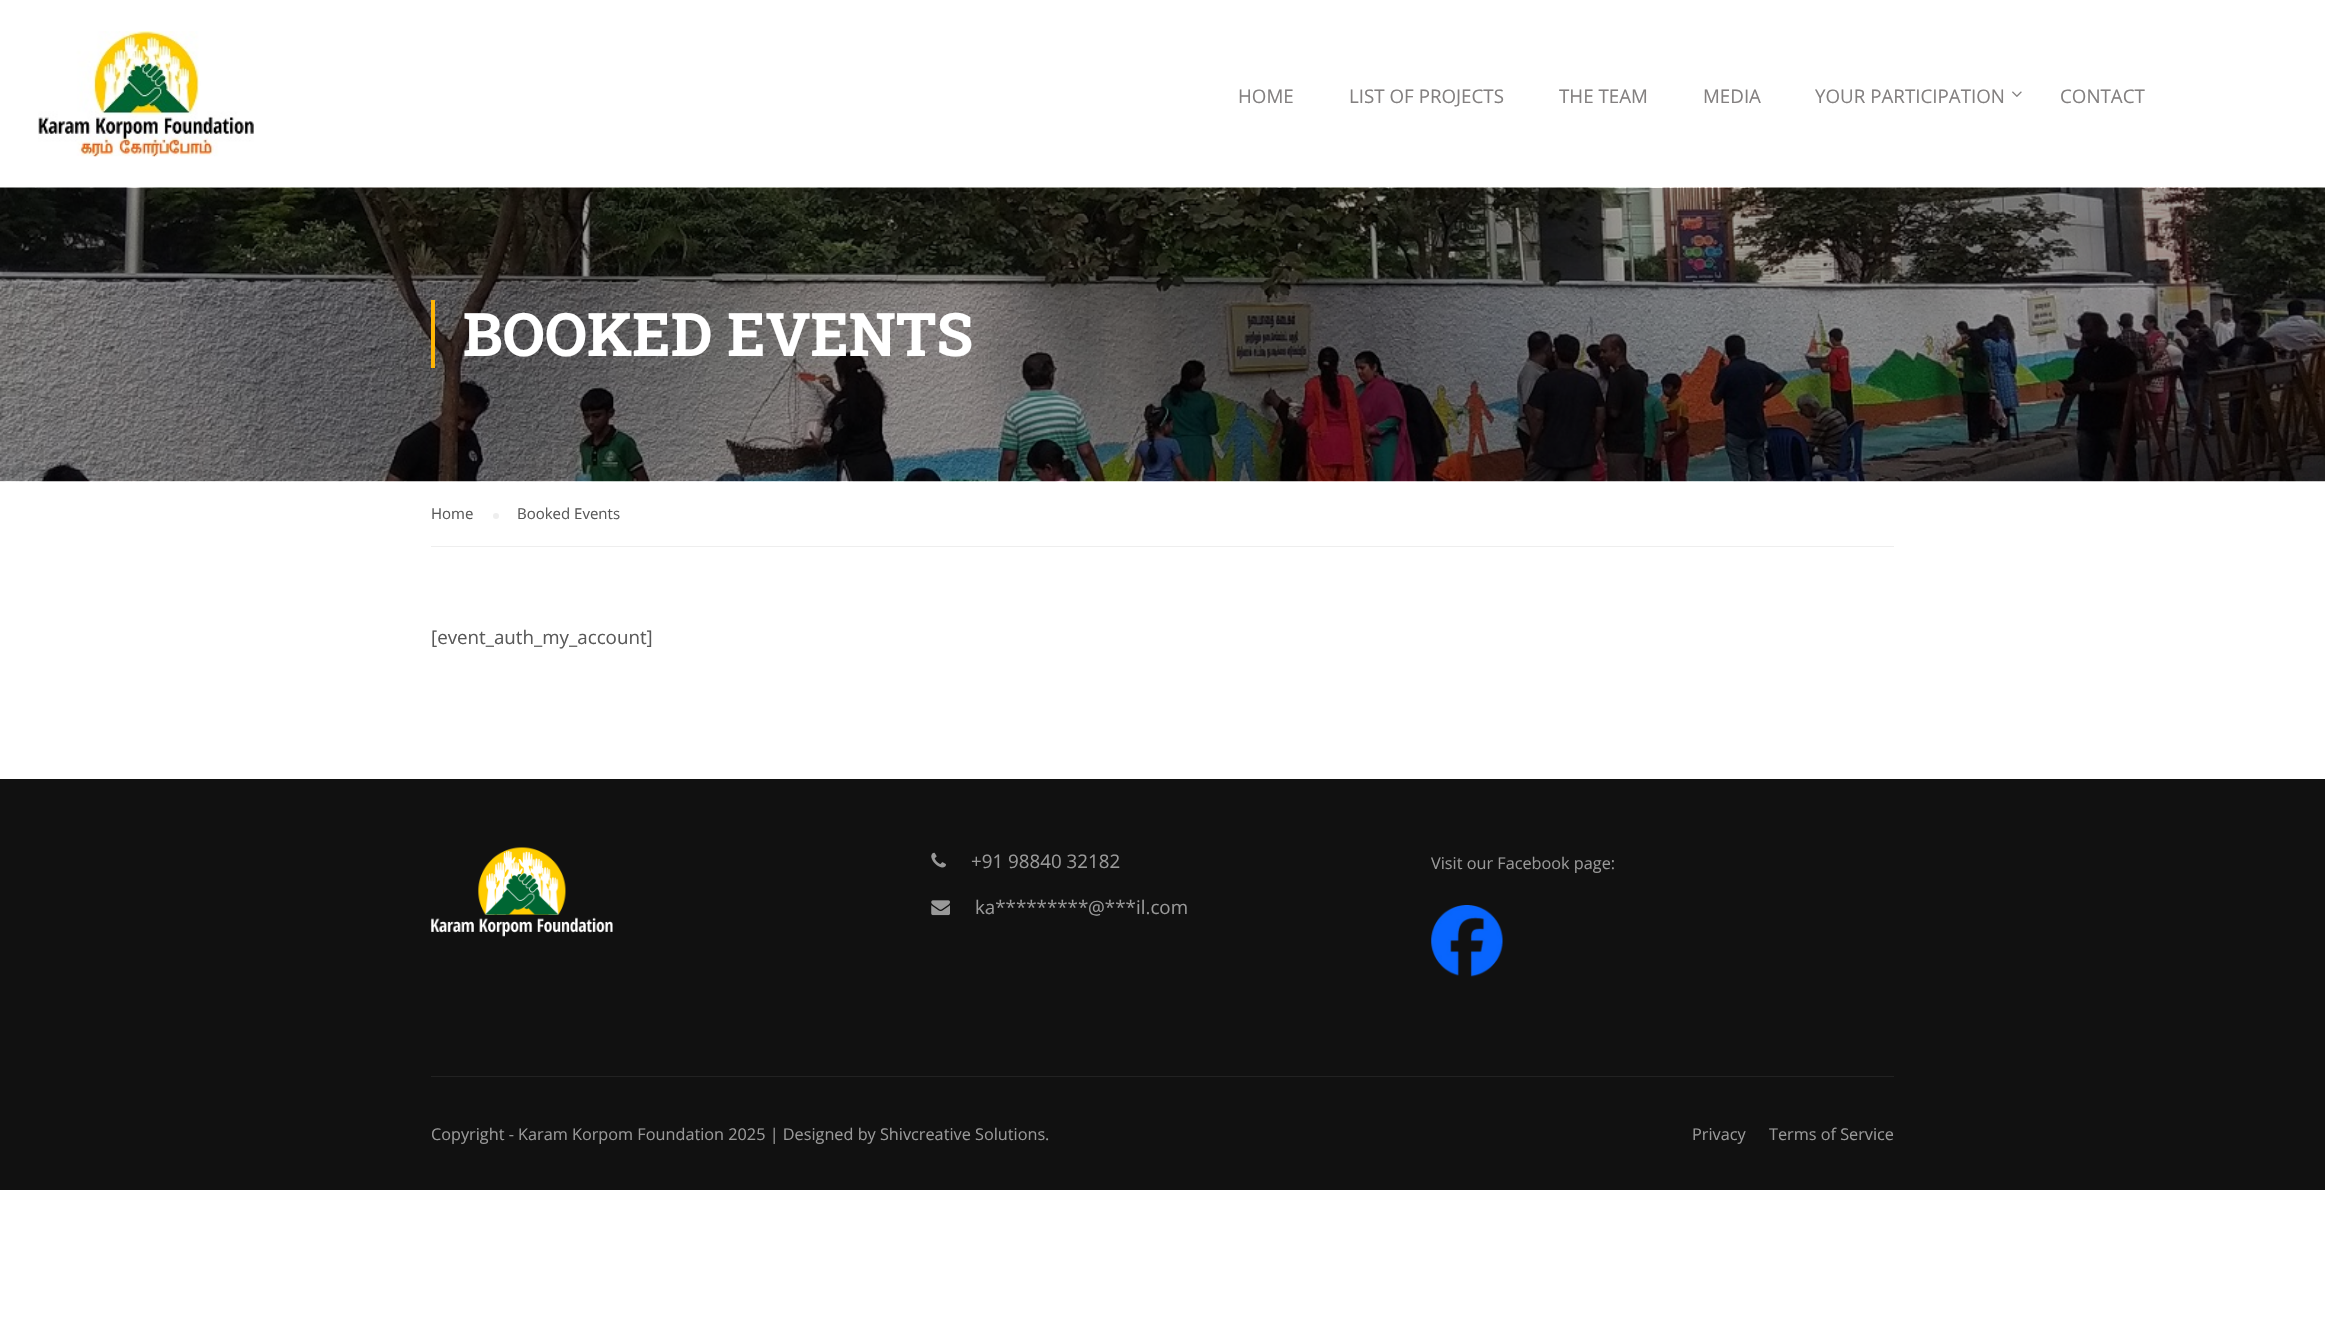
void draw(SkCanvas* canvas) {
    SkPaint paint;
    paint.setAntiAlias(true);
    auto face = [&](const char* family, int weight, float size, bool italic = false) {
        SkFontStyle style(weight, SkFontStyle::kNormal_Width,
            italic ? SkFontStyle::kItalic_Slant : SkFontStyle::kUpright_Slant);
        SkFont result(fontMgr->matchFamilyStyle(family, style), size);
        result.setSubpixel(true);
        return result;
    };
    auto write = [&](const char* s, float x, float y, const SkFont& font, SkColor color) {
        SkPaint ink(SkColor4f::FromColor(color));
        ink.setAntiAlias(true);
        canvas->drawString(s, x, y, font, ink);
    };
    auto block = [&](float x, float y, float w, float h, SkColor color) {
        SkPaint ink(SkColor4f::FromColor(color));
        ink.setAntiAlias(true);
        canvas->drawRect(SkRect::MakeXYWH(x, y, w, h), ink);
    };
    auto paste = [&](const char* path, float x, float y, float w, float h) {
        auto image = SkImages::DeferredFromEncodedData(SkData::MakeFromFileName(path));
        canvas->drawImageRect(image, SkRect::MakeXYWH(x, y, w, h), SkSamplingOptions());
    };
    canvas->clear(SK_ColorWHITE);
    paste("pic1.png", 38, 31, 216, 126);
    auto kFont1 = face("Open Sans", 400, 18.75f);
    write("HOME", 1238, 103, kFont1, SkColorSetRGB(131, 128, 128));
    write("LIST OF PROJECTS", 1349, 103, kFont1, SkColorSetRGB(131, 128, 128));
    write("THE TEAM", 1559, 103, kFont1, SkColorSetRGB(131, 128, 128));
    write("MEDIA", 1703, 103, kFont1, SkColorSetRGB(131, 128, 128));
    write("YOUR PARTICIPATION", 1815, 103, kFont1, SkColorSetRGB(131, 128, 128));
    paste("pic2.png", 2012, 91, 10, 6);
    write("CONTACT", 2060, 103, kFont1, SkColorSetRGB(131, 128, 128));
    paste("pic3.png", 0, 187, 2325, 295);
    block(431, 300, 4, 68, SkColorSetRGB(255, 182, 6));
    auto kFont2 = face("Roboto Slab", 700, 60);
    write("BOOKED EVENTS", 463, 356, kFont2, SK_ColorWHITE);
    block(431, 546, 1463, 1, SkColorSetRGB(238, 238, 238));
    auto kFont3 = face("Open Sans", 400, 15);
    write("Home", 431, 519, kFont3, SkColorSetRGB(89, 89, 89));
    paint.setColor(SkColorSetRGB(238, 238, 238));
    canvas->drawCircle(496, 516, 3, paint);
    write("Booked Events", 517, 519, kFont3, SkColorSetRGB(89, 89, 89));
    write("[event_auth_my_account]", 431, 644, kFont1, SkColorSetRGB(89, 89, 89));
    block(0, 779, 2325, 411, SkColorSetRGB(17, 17, 17));
    paste("pic4.png", 431, 847, 182, 90);
    paste("pic5.png", 931, 852, 15, 16);
    write("+91 98840 32182", 971, 868, kFont1, SkColorSetRGB(153, 153, 153));
    paste("pic6.png", 931, 900, 19, 16);
    write("ka*********", 975, 914, kFont1, SkColorSetRGB(153, 153, 153));
    write("@***", 1088, 914, kFont1, SkColorSetRGB(153, 153, 153));
    write("il.com", 1136, 914, kFont1, SkColorSetRGB(153, 153, 153));
    auto kFont4 = face("Open Sans", 400, 16.25f);
    write("Visit our Facebook page:", 1431, 869, kFont4, SkColorSetRGB(153, 153, 153));
    paste("pic7.png", 1431, 905, 72, 72);
    block(431, 1076, 1463, 1, SkColorSetRGB(34, 34, 34));
    write("Copyright - Karam Korpom Foundation 2025 | Designed by Shivcreative Solutions.", 431, 1140, kFont4, SkColorSetRGB(153, 153, 153));
    write("Privacy", 1692, 1140, kFont4, SkColorSetRGB(153, 153, 153));
    write("Terms of Service", 1769, 1140, kFont4, SkColorSetRGB(153, 153, 153));
}
